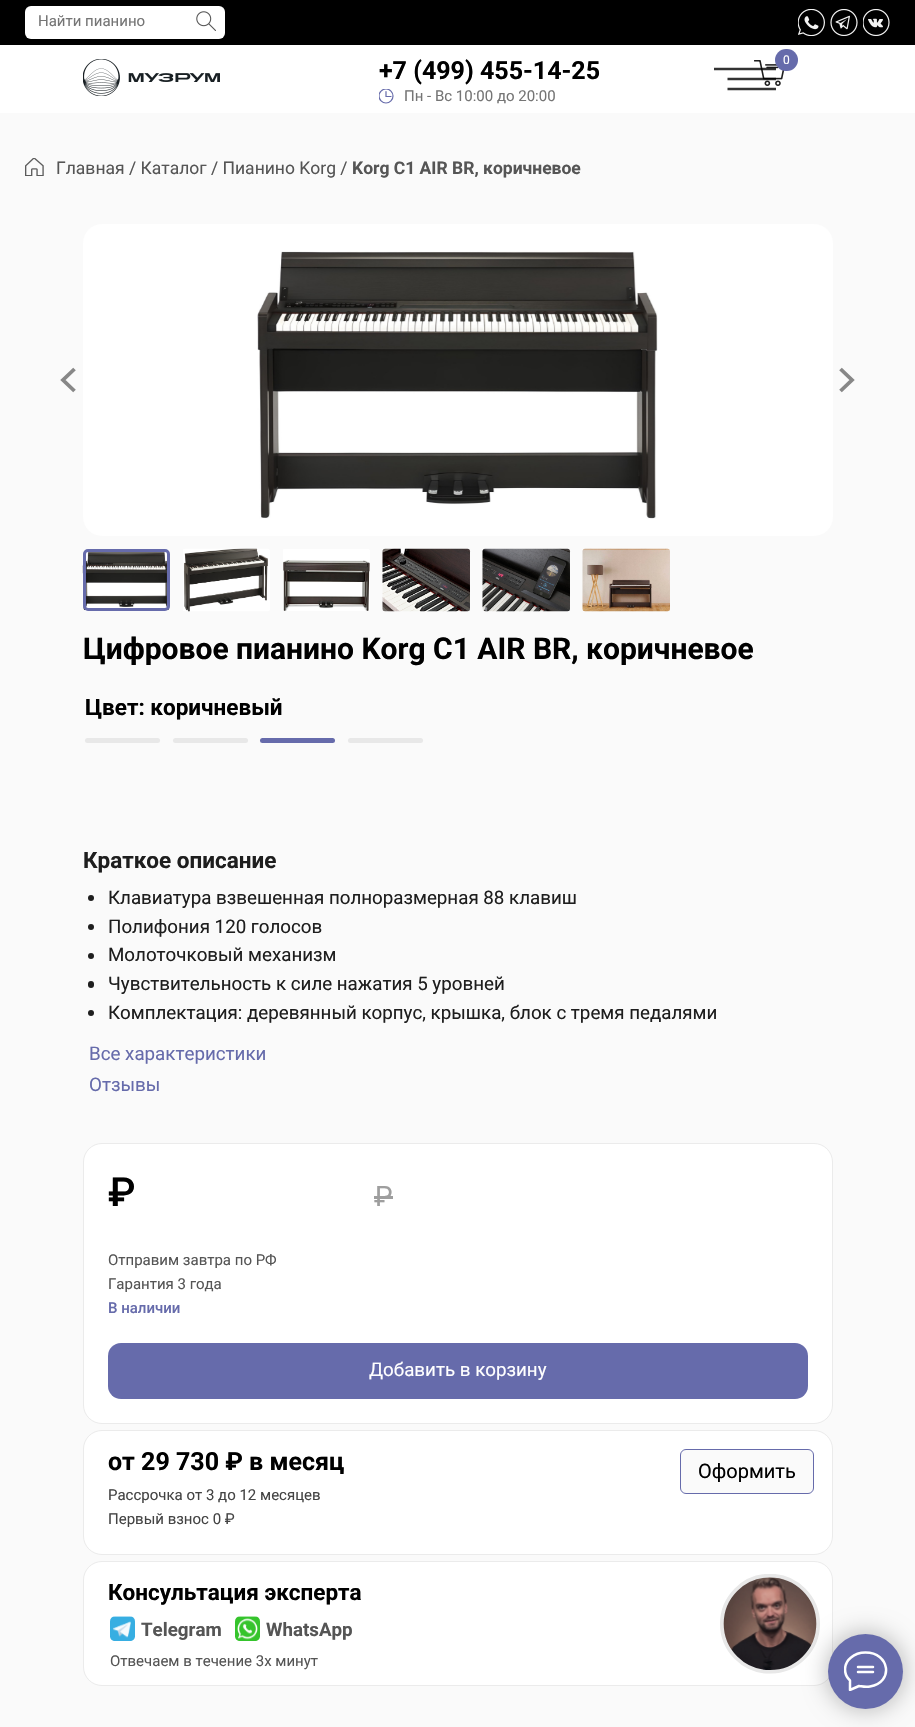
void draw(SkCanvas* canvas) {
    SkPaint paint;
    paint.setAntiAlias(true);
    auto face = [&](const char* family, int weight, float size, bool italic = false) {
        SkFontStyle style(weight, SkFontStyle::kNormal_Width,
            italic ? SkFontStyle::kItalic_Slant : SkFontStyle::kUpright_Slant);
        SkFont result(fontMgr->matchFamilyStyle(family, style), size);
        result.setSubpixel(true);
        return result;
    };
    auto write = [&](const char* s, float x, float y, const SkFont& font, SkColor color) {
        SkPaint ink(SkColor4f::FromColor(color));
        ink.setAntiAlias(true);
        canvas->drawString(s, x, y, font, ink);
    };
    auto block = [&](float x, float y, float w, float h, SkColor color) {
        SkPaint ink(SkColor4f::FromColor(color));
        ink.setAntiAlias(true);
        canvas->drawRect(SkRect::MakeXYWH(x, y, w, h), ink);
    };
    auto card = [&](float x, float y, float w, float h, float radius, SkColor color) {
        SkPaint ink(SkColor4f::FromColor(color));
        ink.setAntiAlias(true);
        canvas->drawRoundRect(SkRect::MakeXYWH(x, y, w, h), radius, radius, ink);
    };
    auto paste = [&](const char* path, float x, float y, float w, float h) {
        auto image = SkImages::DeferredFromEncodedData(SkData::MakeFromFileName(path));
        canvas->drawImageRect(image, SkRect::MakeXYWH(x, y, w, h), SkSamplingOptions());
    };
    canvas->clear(SkColorSetRGB(250, 250, 250));
    block(0, 45, 915, 68, SK_ColorWHITE);
    block(0, 0, 915, 45, SK_ColorBLACK);
    card(25, 6, 200, 33, 6, SK_ColorWHITE);
    paste("pic1.png", 798, 9, 27, 27);
    paste("pic2.png", 830, 9, 28, 27);
    paste("pic3.png", 863, 9, 27, 27);
    auto kFont1 = face("Roboto", 400, 15);
    write("Найти пианино", 38, 26, kFont1, SkColorSetRGB(117, 117, 117));
    paste("pic4.png", 196, 11, 20, 20);
    paste("pic6.png", 754, 60, 31, 26);
    card(775, 49, 23, 22, 11, SkColorSetRGB(102, 107, 171));
    paste("pic5.png", 83, 59, 137, 37);
    auto kFont2 = face("Roboto", 700, 25);
    write("+7 (499) 455-14-25", 379, 79, kFont2, SK_ColorBLACK);
    auto kFont3 = face("Roboto", 400, 12);
    write("0", 783, 64, kFont3, SK_ColorWHITE);
    paint.setStyle(SkPaint::kStroke_Style);
    paint.setStrokeWidth(2.5f);
    paint.setColor(SkColorSetARGB(204, 0, 0, 0));
    canvas->drawPath(SkPathBuilder().moveTo(714, 69).lineTo(776, 69).moveTo(727.5f, 79).lineTo(776, 79).detach(), paint);
    canvas->save();
    canvas->clipRect(SkRect::MakeXYWH(714, 63, 62, 31));
    paint.setColor(SkColorSetRGB(51, 51, 51));
    canvas->drawPath(SkPathBuilder().moveTo(727.5f, 89).lineTo(777.5f, 89).detach(), paint);
    canvas->restore();
    canvas->save();
    canvas->clipRect(SkRect::MakeXYWH(379, 89, 15, 15));
    paint.setStrokeWidth(1.2f);
    paint.setColor(SkColorSetRGB(102, 107, 171));
    canvas->drawCircle(386, 96, 7, paint);
    canvas->restore();
    paint.setStrokeCap(SkPaint::kRound_Cap);
    canvas->drawPath(SkPathBuilder().moveTo(386, 91.5f).lineTo(386, 96.5f).lineTo(391, 96.5f).detach(), paint);
    write("Пн - Вс 10:00 до 20:00", 404, 101, kFont1, SkColorSetRGB(117, 117, 117));
    paste("pic7.png", 25, 158, 19, 18);
    auto kFont4 = face("Roboto", 400, 17.5f);
    write("Главная / Каталог / Пианино Korg /", 56, 174, kFont4, SkColorSetRGB(85, 85, 85));
    auto kFont5 = face("Roboto", 700, 17.5f);
    write("Korg C1 AIR BR, коричневое", 352, 174, kFont5, SkColorSetRGB(85, 85, 85));
    card(83, 224, 750, 312, 19, SK_ColorWHITE);
    paste("pic8.png", 257, 251, 401, 268);
    paint.setStrokeWidth(3.8f);
    paint.setStrokeCap(SkPaint::kButt_Cap);
    paint.setColor(SkColorSetRGB(135, 135, 135));
    canvas->drawPath(SkPathBuilder().moveTo(74.5f, 369).lineTo(63, 380).lineTo(74.5f, 391).detach(), paint);
    canvas->drawPath(SkPathBuilder().moveTo(840.5f, 391).lineTo(852, 380).lineTo(840.5f, 369).detach(), paint);
    paste("pic9.png", 82, 549, 88, 62);
    paint.setStrokeWidth(3);
    paint.setColor(SkColorSetRGB(102, 107, 171));
    canvas->drawRoundRect(SkRect::MakeXYWH(84.5f, 550.5f, 84, 59), 3.5f, 3.5f, paint);
    paste("pic10.png", 183, 548, 87, 64);
    paste("pic11.png", 283, 549, 87, 62);
    paste("pic12.png", 382, 548, 89, 64);
    paste("pic13.png", 482, 548, 89, 64);
    paste("pic14.png", 582, 548, 88, 64);
    auto kFont6 = face("Roboto", 700, 30);
    write("Цифровое пианино Korg C1 AIR BR, коричневое", 83, 659, kFont6, SK_ColorBLACK);
    auto kFont7 = face("Roboto", 700, 22.5f);
    write("Цвет: коричневый", 85, 715, kFont7, SK_ColorBLACK);
    card(85, 738, 75, 5, 2.5f, SkColorSetRGB(232, 232, 232));
    card(173, 738, 75, 5, 2.5f, SkColorSetRGB(232, 232, 232));
    card(260, 738, 75, 5, 2.5f, SkColorSetRGB(102, 107, 171));
    card(348, 738, 75, 5, 2.5f, SkColorSetRGB(232, 232, 232));
    write("Краткое описание", 83, 868, kFont7, SkColorSetRGB(30, 30, 30));
    paint.setStyle(SkPaint::kFill_Style);
    paint.setColor(SkColorSetRGB(30, 30, 30));
    canvas->drawCircle(91, 898, 3, paint);
    auto kFont8 = face("Roboto", 400, 18.75f);
    write("Клавиатура взвешенная полноразмерная 88 клавиш", 108, 904, kFont8, SkColorSetRGB(30, 30, 30));
    canvas->drawCircle(91, 927, 3, paint);
    write("Полифония 120 голосов", 108, 933, kFont8, SkColorSetRGB(30, 30, 30));
    canvas->drawCircle(91, 956, 3, paint);
    write("Молоточковый механизм", 108, 961, kFont8, SkColorSetRGB(30, 30, 30));
    card(88, 981, 6, 7, 3, SkColorSetRGB(30, 30, 30));
    write("Чувствительность к силе нажатия 5 уровней", 108, 990, kFont8, SkColorSetRGB(30, 30, 30));
    canvas->drawCircle(91, 1013, 3, paint);
    write("Комплектация: деревянный корпус, крышка, блок с тремя педалями", 108, 1019, kFont8, SkColorSetRGB(30, 30, 30));
    write("Все характеристики", 89, 1060, kFont8, SkColorSetRGB(102, 107, 171));
    write("Отзывы", 89, 1091, kFont8, SkColorSetRGB(102, 107, 171));
    paint.setColor(SK_ColorWHITE);
    canvas->drawRoundRect(SkRect::MakeXYWH(83.5f, 1143.5f, 749, 280), 18.5f, 18.5f, paint);
    paint.setStyle(SkPaint::kStroke_Style);
    paint.setStrokeWidth(1);
    paint.setColor(SkColorSetRGB(235, 235, 235));
    canvas->drawRoundRect(SkRect::MakeXYWH(83.5f, 1143.5f, 749, 280), 18.5f, 18.5f, paint);
    auto kFont9 = face("Roboto", 500, 40);
    write("₽", 108, 1206, kFont9, SK_ColorBLACK);
    auto kFont10 = face("Roboto", 400, 28);
    write("₽", 374, 1206, kFont10, SkColorSetRGB(158, 158, 158));
    block(374, 1196, 19, 3, SkColorSetRGB(158, 158, 158));
    write("Отправим завтра по РФ", 108, 1265, kFont1, SkColorSetRGB(85, 85, 85));
    write("Гарантия 3 года", 108, 1289, kFont1, SkColorSetRGB(85, 85, 85));
    auto kFont11 = face("Roboto", 500, 15);
    write("В наличии", 108, 1313, kFont11, SkColorSetRGB(102, 107, 171));
    card(108, 1343, 700, 56, 13, SkColorSetRGB(102, 107, 171));
    write("Добавить в корзину", 369, 1376, kFont8, SK_ColorWHITE);
    paint.setStyle(SkPaint::kFill_Style);
    paint.setColor(SK_ColorWHITE);
    canvas->drawRoundRect(SkRect::MakeXYWH(83.5f, 1430.5f, 749, 124), 18.5f, 18.5f, paint);
    paint.setStyle(SkPaint::kStroke_Style);
    paint.setColor(SkColorSetRGB(235, 235, 235));
    canvas->drawRoundRect(SkRect::MakeXYWH(83.5f, 1430.5f, 749, 124), 18.5f, 18.5f, paint);
    write("от 29 730 ₽ в месяц", 108, 1470, kFont2, SK_ColorBLACK);
    paint.setStyle(SkPaint::kFill_Style);
    paint.setColor(SkColorSetRGB(250, 250, 250));
    canvas->drawRoundRect(SkRect::MakeXYWH(680.5f, 1449.5f, 133, 44), 5.5f, 5.5f, paint);
    paint.setStyle(SkPaint::kStroke_Style);
    paint.setColor(SkColorSetRGB(102, 107, 171));
    canvas->drawRoundRect(SkRect::MakeXYWH(680.5f, 1449.5f, 133, 44), 5.5f, 5.5f, paint);
    auto kFont12 = face("Roboto", 400, 20);
    write("Оформить", 698, 1478, kFont12, SK_ColorBLACK);
    write("Рассрочка от 3 до 12 месяцев", 108, 1500, kFont1, SkColorSetRGB(68, 68, 68));
    write("Первый взнос 0 ₽", 108, 1524, kFont1, SkColorSetRGB(68, 68, 68));
    paint.setStyle(SkPaint::kFill_Style);
    paint.setColor(SK_ColorWHITE);
    canvas->drawRoundRect(SkRect::MakeXYWH(83.5f, 1561.5f, 749, 124), 18.5f, 18.5f, paint);
    paint.setStyle(SkPaint::kStroke_Style);
    paint.setColor(SkColorSetRGB(235, 235, 235));
    canvas->drawRoundRect(SkRect::MakeXYWH(83.5f, 1561.5f, 749, 124), 18.5f, 18.5f, paint);
    write("Консультация эксперта", 108, 1600, kFont7, SK_ColorBLACK);
    paste("pic15.png", 720, 1574, 100, 100);
    paste("pic16.png", 110, 1616, 25, 25);
    auto kFont13 = face("Roboto", 700, 18.75f);
    write("Telegram", 141, 1636, kFont13, SkColorSetRGB(85, 85, 85));
    paste("pic17.png", 235, 1616, 25, 25);
    write("WhatsApp", 266, 1636, kFont13, SkColorSetRGB(85, 85, 85));
    write("Отвечаем в течение 3х минут", 110, 1666, kFont1, SkColorSetRGB(85, 85, 85));
    paint.setStyle(SkPaint::kFill_Style);
    paint.setColor(SkColorSetARGB(77, 0, 0, 0));
    paint.setMaskFilter(SkMaskFilter::MakeBlur(kNormal_SkBlurStyle, 12.5f));
    canvas->drawRoundRect(SkRect::MakeXYWH(828, 1634, 75, 75), 37.5f, 37.5f, paint);
    paint.setMaskFilter(nullptr);
    paint.setColor(SkColorSetRGB(102, 107, 171));
    canvas->drawCircle(865.5f, 1671.5f, 37.5f, paint);
    canvas->save();
    canvas->clipRect(SkRect::MakeXYWH(844, 1651, 44, 40));
    paint.setStyle(SkPaint::kStroke_Style);
    paint.setStrokeWidth(2.5f);
    paint.setStrokeCap(SkPaint::kRound_Cap);
    paint.setStrokeJoin(SkPaint::kRound_Join);
    paint.setColor(SK_ColorWHITE);
    canvas->drawPath(SkPathBuilder().moveTo(858, 1667).lineTo(873, 1667).moveTo(858, 1672).lineTo(873, 1672).moveTo(850, 1680.5f).cubicTo(843, 1674, 843.5f, 1663.5f, 851, 1657.5f).cubicTo(855, 1654, 860.5f, 1652.5f, 865.5f, 1652.5f).cubicTo(890, 1652.5f, 894, 1682.5f, 870, 1686.5f).cubicTo(865.5f, 1687.5f, 862.5f, 1686.5f, 859, 1686).lineTo(850, 1690).close().detach(), paint);
    canvas->restore();
}
